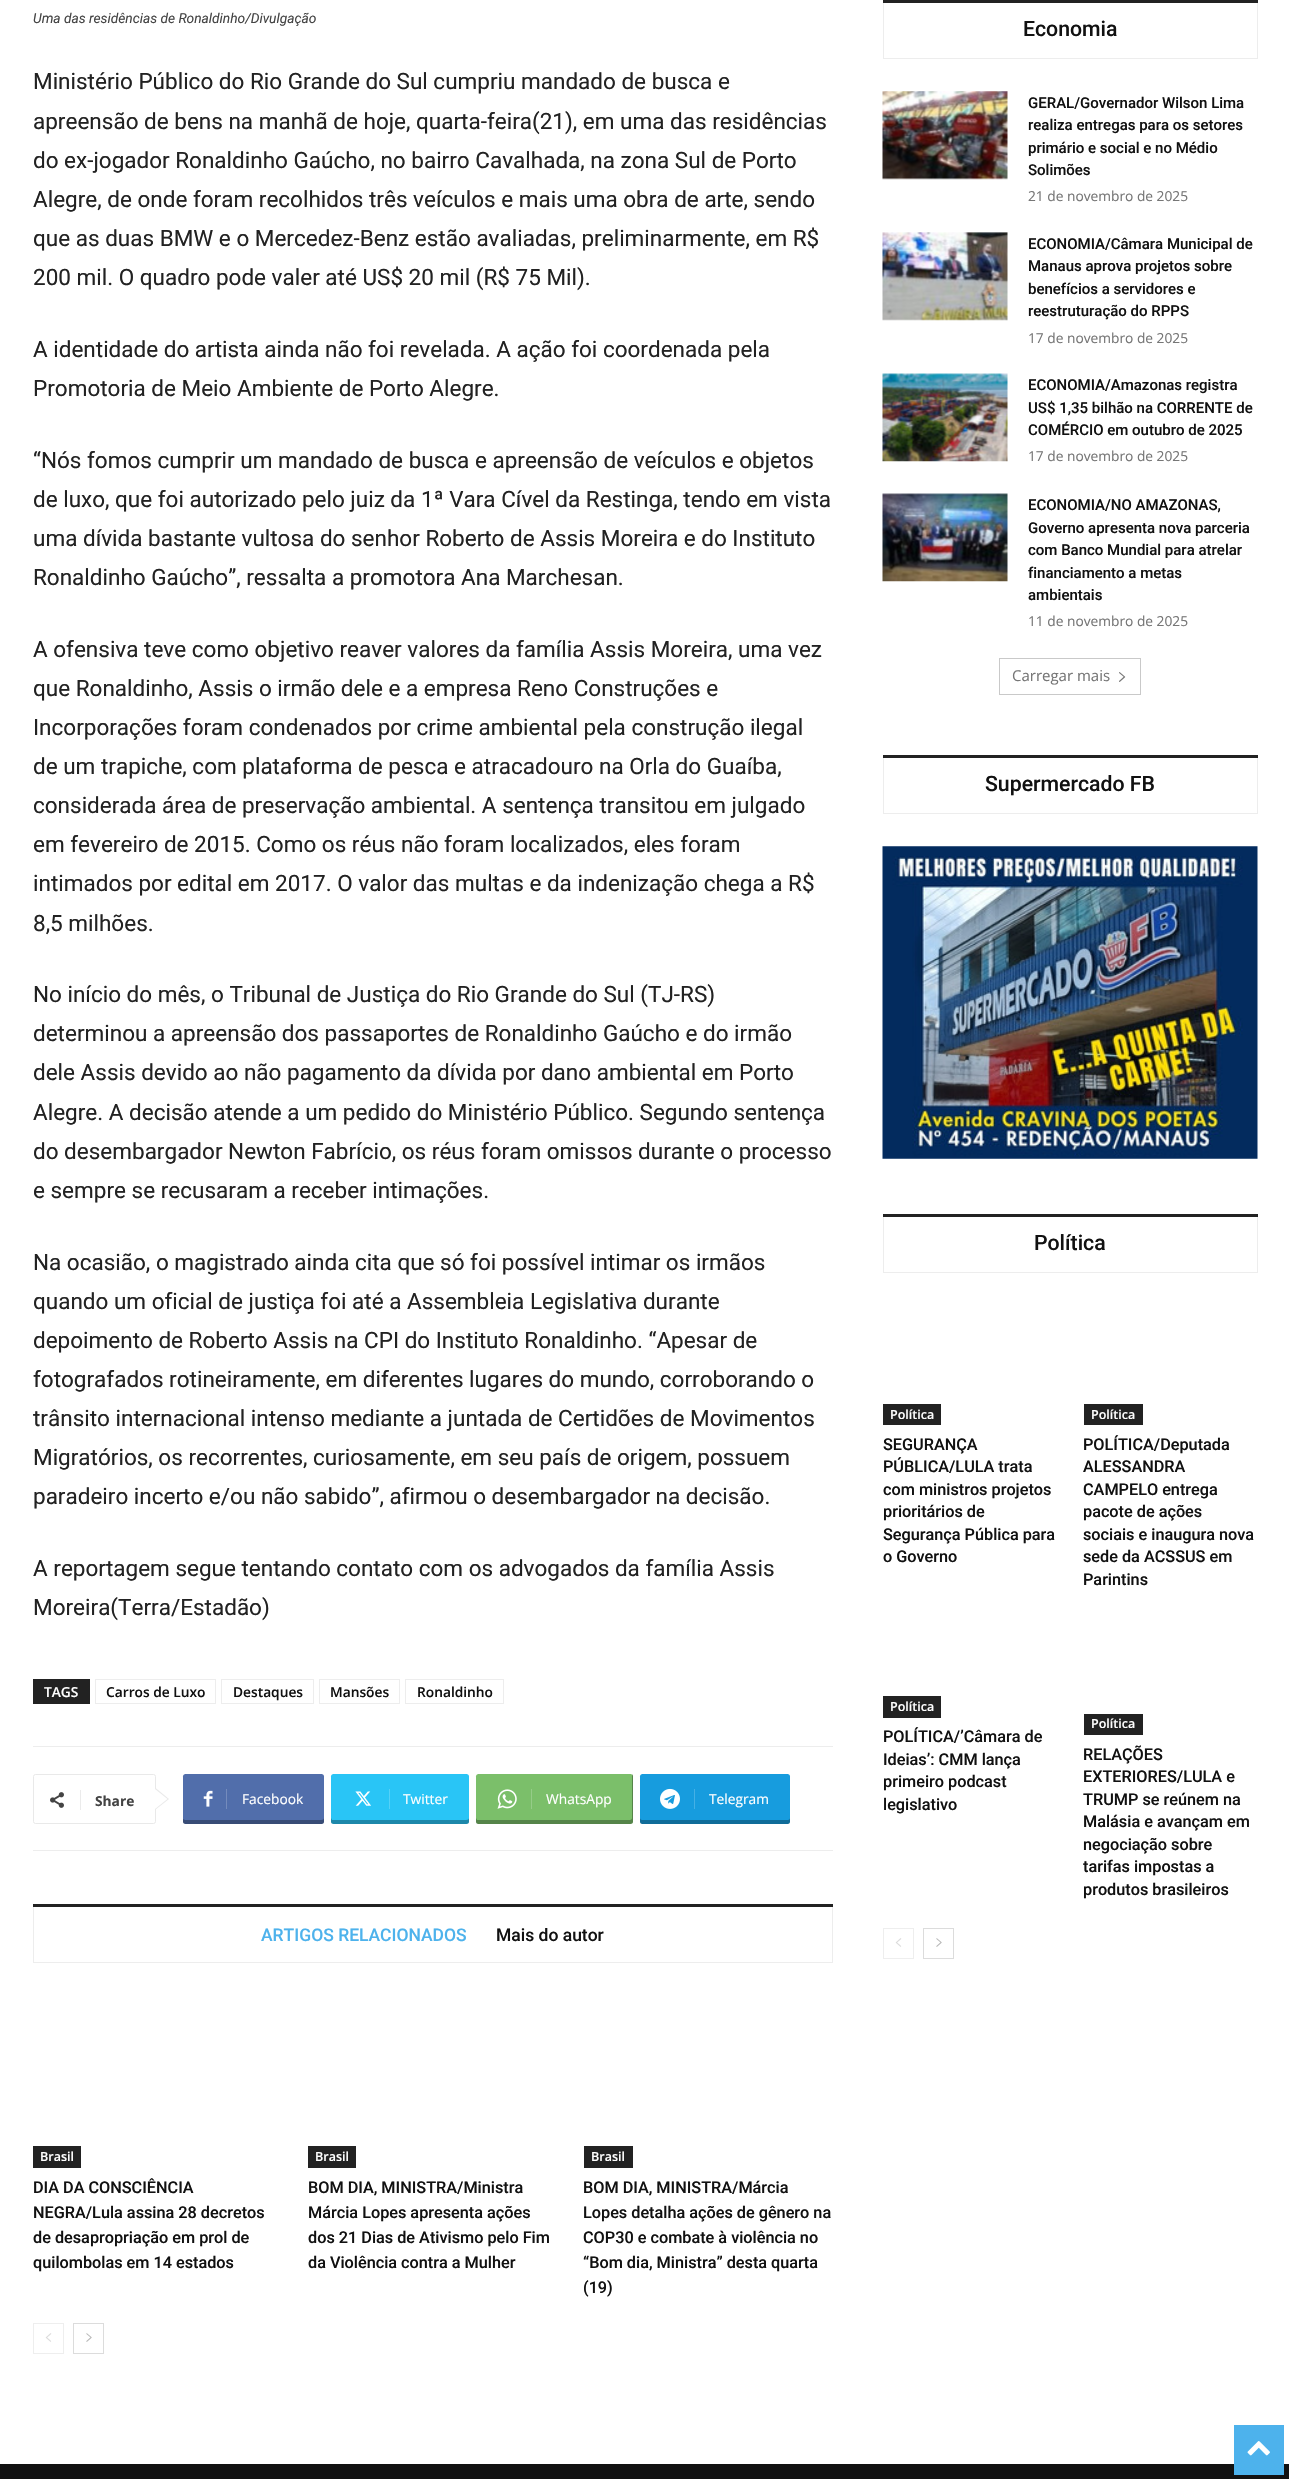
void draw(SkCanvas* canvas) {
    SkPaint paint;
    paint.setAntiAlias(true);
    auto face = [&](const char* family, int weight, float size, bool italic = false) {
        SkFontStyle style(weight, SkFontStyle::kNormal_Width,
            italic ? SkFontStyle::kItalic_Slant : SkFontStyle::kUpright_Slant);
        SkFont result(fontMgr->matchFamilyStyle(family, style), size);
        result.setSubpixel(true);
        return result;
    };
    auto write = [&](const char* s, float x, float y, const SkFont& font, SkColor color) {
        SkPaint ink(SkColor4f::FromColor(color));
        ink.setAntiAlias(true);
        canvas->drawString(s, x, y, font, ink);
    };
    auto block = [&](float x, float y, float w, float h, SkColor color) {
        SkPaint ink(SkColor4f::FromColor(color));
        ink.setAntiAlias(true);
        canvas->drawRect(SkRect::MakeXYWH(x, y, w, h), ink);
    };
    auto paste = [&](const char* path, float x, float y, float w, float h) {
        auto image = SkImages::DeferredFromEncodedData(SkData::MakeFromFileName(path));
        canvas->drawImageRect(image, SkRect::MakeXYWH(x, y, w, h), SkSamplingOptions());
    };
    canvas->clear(SK_ColorWHITE);
    auto kFont1 = face("Roboto", 400, 13.75f, true);
    write("Uma das residências de Ronaldinho/Divulgação", 33, 23, kFont1, SkColorSetRGB(68, 68, 68));
    auto kFont2 = face("Roboto", 400, 22.5f);
    write("Ministério Público do Rio Grande do Sul cumpriu mandado de busca e", 33, 89, kFont2, SkColorSetRGB(34, 34, 34));
    write("apreensão de bens na manhã de hoje, quarta-feira(21), em uma das residências", 33, 129, kFont2, SkColorSetRGB(34, 34, 34));
    write("do ex-jogador Ronaldinho Gaúcho, no bairro Cavalhada, na zona Sul de Porto", 33, 168, kFont2, SkColorSetRGB(34, 34, 34));
    write("Alegre, de onde foram recolhidos três veículos e mais uma obra de arte, sendo", 33, 207, kFont2, SkColorSetRGB(34, 34, 34));
    write("que as duas BMW e o Mercedez-Benz estão avaliadas, preliminarmente, em R$", 33, 246, kFont2, SkColorSetRGB(34, 34, 34));
    write("200 mil. O quadro pode valer até US$ 20 mil (R$ 75 Mil).", 33, 285, kFont2, SkColorSetRGB(34, 34, 34));
    write("A identidade do artista ainda não foi revelada. A ação foi coordenada pela", 33, 357, kFont2, SkColorSetRGB(34, 34, 34));
    write("Promotoria de Meio Ambiente de Porto Alegre.", 33, 396, kFont2, SkColorSetRGB(34, 34, 34));
    write("“Nós fomos cumprir um mandado de busca e apreensão de veículos e objetos", 33, 468, kFont2, SkColorSetRGB(34, 34, 34));
    write("de luxo, que foi autorizado pelo juiz da 1ª Vara Cível da Restinga, tendo em vista", 33, 507, kFont2, SkColorSetRGB(34, 34, 34));
    write("uma dívida bastante vultosa do senhor Roberto de Assis Moreira e do Instituto", 33, 546, kFont2, SkColorSetRGB(34, 34, 34));
    write("Ronaldinho Gaúcho”, ressalta a promotora Ana Marchesan.", 33, 585, kFont2, SkColorSetRGB(34, 34, 34));
    write("A ofensiva teve como objetivo reaver valores da família Assis Moreira, uma vez", 33, 657, kFont2, SkColorSetRGB(34, 34, 34));
    write("que Ronaldinho, Assis o irmão dele e a empresa Reno Construções e", 33, 696, kFont2, SkColorSetRGB(34, 34, 34));
    write("Incorporações foram condenados por crime ambiental pela construção ilegal", 33, 735, kFont2, SkColorSetRGB(34, 34, 34));
    write("de um trapiche, com plataforma de pesca e atracadouro na Orla do Guaíba,", 33, 774, kFont2, SkColorSetRGB(34, 34, 34));
    write("considerada área de preservação ambiental. A sentença transitou em julgado", 33, 813, kFont2, SkColorSetRGB(34, 34, 34));
    write("em fevereiro de 2015. Como os réus não foram localizados, eles foram", 33, 852, kFont2, SkColorSetRGB(34, 34, 34));
    write("intimados por edital em 2017. O valor das multas e da indenização chega a R$", 33, 891, kFont2, SkColorSetRGB(34, 34, 34));
    write("8,5 milhões.", 33, 931, kFont2, SkColorSetRGB(34, 34, 34));
    write("No início do mês, o Tribunal de Justiça do Rio Grande do Sul (TJ-RS)", 33, 1002, kFont2, SkColorSetRGB(34, 34, 34));
    write("determinou a apreensão dos passaportes de Ronaldinho Gaúcho e do irmão", 33, 1041, kFont2, SkColorSetRGB(34, 34, 34));
    write("dele Assis devido ao não pagamento da dívida por dano ambiental em Porto", 33, 1080, kFont2, SkColorSetRGB(34, 34, 34));
    write("Alegre. A decisão atende a um pedido do Ministério Público. Segundo sentença", 33, 1120, kFont2, SkColorSetRGB(34, 34, 34));
    write("do desembargador Newton Fabrício, os réus foram omissos durante o processo", 33, 1159, kFont2, SkColorSetRGB(34, 34, 34));
    write("e sempre se recusaram a receber intimações.", 33, 1198, kFont2, SkColorSetRGB(34, 34, 34));
    write("Na ocasião, o magistrado ainda cita que só foi possível intimar os irmãos", 33, 1270, kFont2, SkColorSetRGB(34, 34, 34));
    write("quando um oficial de justiça foi até a Assembleia Legislativa durante", 33, 1309, kFont2, SkColorSetRGB(34, 34, 34));
    write("depoimento de Roberto Assis na CPI do Instituto Ronaldinho. “Apesar de", 33, 1348, kFont2, SkColorSetRGB(34, 34, 34));
    write("fotografados rotineiramente, em diferentes lugares do mundo, corroborando o", 33, 1387, kFont2, SkColorSetRGB(34, 34, 34));
    write("trânsito internacional intenso mediante a juntada de Certidões de Movimentos", 33, 1426, kFont2, SkColorSetRGB(34, 34, 34));
    write("Migratórios, os recorrentes, curiosamente, em seu país de origem, possuem", 33, 1465, kFont2, SkColorSetRGB(34, 34, 34));
    write("paradeiro incerto e/ou não sabido”, afirmou o desembargador na decisão.", 33, 1504, kFont2, SkColorSetRGB(34, 34, 34));
    write("A reportagem segue tentando contato com os advogados da família Assis", 33, 1576, kFont2, SkColorSetRGB(34, 34, 34));
    write("Moreira(Terra/Estadão)", 33, 1615, kFont2, SkColorSetRGB(34, 34, 34));
    block(33, 1679, 57, 25, SkColorSetRGB(34, 34, 34));
    auto kFont3 = face("Open Sans", 600, 13.75f);
    write("TAGS", 44, 1697, kFont3, SK_ColorWHITE);
    paint.setStyle(SkPaint::kStroke_Style);
    paint.setStrokeWidth(1);
    paint.setColor(SkColorSetRGB(237, 237, 237));
    canvas->drawRect(SkRect::MakeXYWH(95.5f, 1679.5f, 120, 24), paint);
    write("Carros de Luxo", 106, 1697, kFont3, SkColorSetRGB(17, 17, 17));
    canvas->drawRect(SkRect::MakeXYWH(221.5f, 1679.5f, 92, 24), paint);
    write("Destaques", 233, 1697, kFont3, SkColorSetRGB(17, 17, 17));
    canvas->drawRect(SkRect::MakeXYWH(319.5f, 1679.5f, 80, 24), paint);
    write("Mansões", 330, 1697, kFont3, SkColorSetRGB(17, 17, 17));
    canvas->drawRect(SkRect::MakeXYWH(405.5f, 1679.5f, 98, 24), paint);
    write("Ronaldinho", 417, 1697, kFont3, SkColorSetRGB(17, 17, 17));
    block(33, 1746, 800, 1, SkColorSetRGB(237, 237, 237));
    block(33, 1850, 800, 1, SkColorSetRGB(237, 237, 237));
    paint.setColor(SkColorSetRGB(233, 233, 233));
    canvas->drawRoundRect(SkRect::MakeXYWH(33.5f, 1774.5f, 122, 49), 2, 2, paint);
    paint.setStyle(SkPaint::kFill_Style);
    canvas->drawPath(SkPathBuilder().moveTo(155, 1810).lineTo(155, 1787.5f).lineTo(169, 1799).close().detach(), paint);
    paste("pic1.png", 50, 1792, 14, 16);
    block(80, 1790, 1, 20, SkColorSetRGB(235, 235, 235));
    auto kFont4 = face("Open Sans", 700, 13.75f);
    write("Share", 95, 1806, kFont4, SkColorSetRGB(68, 68, 68));
    paint.setColor(SK_ColorWHITE);
    canvas->drawPath(SkPathBuilder().moveTo(155, 1809).lineTo(155, 1789).lineTo(167.5f, 1799).close().detach(), paint);
    paint.setColor(SkColorSetRGB(81, 110, 171));
    canvas->drawPath(SkPathBuilder().moveTo(226, 1774).lineTo(321.5f, 1774).cubicTo(323, 1774, 324, 1775, 324, 1776.5f).lineTo(324, 1821.5f).cubicTo(324, 1823, 323, 1824, 321.5f, 1824).lineTo(226, 1824).close().detach(), paint);
    paint.setColor(SkColorSetARGB(79, 0, 0, 0));
    canvas->drawPath(SkPathBuilder().moveTo(226, 1820).lineTo(226, 1824).lineTo(322, 1824).cubicTo(323, 1824, 324, 1823, 324, 1822).lineTo(324, 1818).cubicTo(324, 1819, 323, 1820, 321, 1820).close().detach(), paint);
    paint.setColor(SkColorSetRGB(81, 110, 171));
    canvas->drawPath(SkPathBuilder().moveTo(185.5f, 1774).lineTo(234, 1774).lineTo(234, 1824).lineTo(185.5f, 1824).cubicTo(184, 1824, 183, 1823, 183, 1821.5f).lineTo(183, 1776.5f).cubicTo(183, 1775, 184, 1774, 185.5f, 1774).close().detach(), paint);
    paint.setColor(SkColorSetARGB(79, 0, 0, 0));
    canvas->drawPath(SkPathBuilder().moveTo(183, 1819).lineTo(183, 1822).cubicTo(183, 1823, 184, 1824, 186, 1824).lineTo(234, 1824).lineTo(234, 1820).lineTo(185, 1820).close().detach(), paint);
    paste("pic2.png", 203, 1790, 10, 17);
    block(226, 1789, 1, 20, SkColorSetRGB(116, 139, 188));
    auto kFont5 = face("Open Sans", 400, 13.75f);
    write("Facebook", 242, 1804, kFont5, SK_ColorWHITE);
    paint.setColor(SkColorSetRGB(41, 197, 246));
    canvas->drawPath(SkPathBuilder().moveTo(389, 1774).lineTo(466.5f, 1774).cubicTo(468, 1774, 469, 1775, 469, 1776.5f).lineTo(469, 1821.5f).cubicTo(469, 1823, 468, 1824, 466.5f, 1824).lineTo(389, 1824).close().detach(), paint);
    paint.setColor(SkColorSetARGB(79, 0, 0, 0));
    canvas->drawPath(SkPathBuilder().moveTo(389, 1820).lineTo(389, 1824).lineTo(466, 1824).cubicTo(468, 1824, 469, 1823, 469, 1822).lineTo(469, 1818).cubicTo(469, 1819, 468, 1820, 466, 1820).close().detach(), paint);
    paint.setColor(SkColorSetRGB(41, 197, 246));
    canvas->drawPath(SkPathBuilder().moveTo(333.5f, 1774).lineTo(396, 1774).lineTo(396, 1824).lineTo(333.5f, 1824).cubicTo(332, 1824, 331, 1823, 331, 1821.5f).lineTo(331, 1776.5f).cubicTo(331, 1775, 332, 1774, 333.5f, 1774).close().detach(), paint);
    paint.setColor(SkColorSetARGB(79, 0, 0, 0));
    canvas->drawPath(SkPathBuilder().moveTo(331, 1818).lineTo(331, 1822).cubicTo(331, 1823, 332, 1824, 334, 1824).lineTo(396, 1824).lineTo(396, 1820).lineTo(332, 1820).close().detach(), paint);
    paste("pic3.png", 355, 1791, 16, 15);
    block(389, 1789, 1, 20, SkColorSetRGB(84, 209, 248));
    write("Twitter", 403, 1804, kFont5, SK_ColorWHITE);
    paint.setColor(SkColorSetRGB(123, 191, 106));
    canvas->drawPath(SkPathBuilder().moveTo(531, 1774).lineTo(630.5f, 1774).cubicTo(632, 1774, 633, 1775, 633, 1776.5f).lineTo(633, 1821.5f).cubicTo(633, 1823, 632, 1824, 630.5f, 1824).lineTo(531, 1824).close().detach(), paint);
    paint.setColor(SkColorSetARGB(79, 0, 0, 0));
    canvas->drawPath(SkPathBuilder().moveTo(531, 1820).lineTo(531, 1824).lineTo(630, 1824).cubicTo(632, 1824, 633, 1823, 633, 1822).lineTo(633, 1776).cubicTo(633, 1776, 633, 1775, 632, 1774).lineTo(632, 1818).cubicTo(632, 1819, 631, 1820, 630, 1820).close().detach(), paint);
    paint.setColor(SkColorSetRGB(123, 191, 106));
    canvas->drawPath(SkPathBuilder().moveTo(478.5f, 1774).lineTo(539, 1774).lineTo(539, 1824).lineTo(478.5f, 1824).cubicTo(477, 1824, 476, 1823, 476, 1821.5f).lineTo(476, 1776.5f).cubicTo(476, 1775, 477, 1774, 478.5f, 1774).close().detach(), paint);
    paint.setColor(SkColorSetARGB(79, 0, 0, 0));
    canvas->drawPath(SkPathBuilder().moveTo(476, 1818).lineTo(476, 1822).cubicTo(476, 1823, 477, 1824, 478, 1824).lineTo(539, 1824).lineTo(539, 1820).lineTo(477, 1820).close().detach(), paint);
    paste("pic4.png", 497, 1789, 20, 20);
    block(531, 1789, 1, 20, SkColorSetRGB(149, 204, 136));
    write("WhatsApp", 546, 1804, kFont5, SK_ColorWHITE);
    paint.setColor(SkColorSetRGB(23, 156, 222));
    canvas->drawPath(SkPathBuilder().moveTo(694, 1774).lineTo(787.5f, 1774).cubicTo(789, 1774, 790, 1775, 790, 1776.5f).lineTo(790, 1821.5f).cubicTo(790, 1823, 789, 1824, 787.5f, 1824).lineTo(694, 1824).close().detach(), paint);
    paint.setColor(SkColorSetARGB(79, 0, 0, 0));
    canvas->drawPath(SkPathBuilder().moveTo(694, 1820).lineTo(694, 1824).lineTo(788, 1824).cubicTo(789, 1824, 790, 1823, 790, 1822).lineTo(790, 1818).cubicTo(790, 1819, 789, 1820, 788, 1820).close().detach(), paint);
    paint.setColor(SkColorSetRGB(23, 156, 222));
    canvas->drawPath(SkPathBuilder().moveTo(642.5f, 1774).lineTo(701, 1774).lineTo(701, 1824).lineTo(642.5f, 1824).cubicTo(641, 1824, 640, 1823, 640, 1821.5f).lineTo(640, 1776.5f).cubicTo(640, 1775, 641, 1774, 642.5f, 1774).close().detach(), paint);
    paint.setColor(SkColorSetARGB(79, 0, 0, 0));
    canvas->drawPath(SkPathBuilder().moveTo(640, 1818).lineTo(640, 1822).cubicTo(640, 1823, 641, 1824, 642, 1824).lineTo(701, 1824).lineTo(701, 1820).lineTo(642, 1820).cubicTo(641, 1820, 640, 1819, 640, 1818).close().detach(), paint);
    paste("pic5.png", 660, 1788, 20, 21);
    block(694, 1789, 1, 20, SkColorSetRGB(69, 176, 229));
    write("Telegram", 709, 1804, kFont5, SK_ColorWHITE);
    paint.setStyle(SkPaint::kStroke_Style);
    paint.setColor(SkColorSetRGB(237, 237, 237));
    canvas->drawRect(SkRect::MakeXYWH(33.5f, 1904.5f, 799, 58), paint);
    block(33, 1904, 800, 3, SkColorSetRGB(34, 34, 34));
    auto kFont6 = face("Roboto", 500, 17.5f);
    write("ARTIGOS RELACIONADOS", 261, 1941, kFont6, SkColorSetRGB(77, 178, 236));
    write("Mais do autor", 496, 1941, kFont6, SkColorSetRGB(17, 17, 17));
    block(33, 2146, 48, 22, SkColorSetRGB(34, 34, 34));
    auto kFont7 = face("Open Sans", 600, 12.5f);
    write("Brasil", 40, 2161, kFont7, SK_ColorWHITE);
    auto kFont8 = face("Roboto", 500, 16.25f);
    write("DIA DA CONSCIÊNCIA", 33, 2193, kFont8, SkColorSetRGB(17, 17, 17));
    write("NEGRA/Lula assina 28 decretos", 33, 2218, kFont8, SkColorSetRGB(17, 17, 17));
    write("de desapropriação em prol de", 33, 2243, kFont8, SkColorSetRGB(17, 17, 17));
    write("quilombolas em 14 estados", 33, 2268, kFont8, SkColorSetRGB(17, 17, 17));
    block(308, 2146, 48, 22, SkColorSetRGB(34, 34, 34));
    write("Brasil", 315, 2161, kFont7, SK_ColorWHITE);
    write("BOM DIA, MINISTRA/Ministra", 308, 2193, kFont8, SkColorSetRGB(17, 17, 17));
    write("Márcia Lopes apresenta ações", 308, 2218, kFont8, SkColorSetRGB(17, 17, 17));
    write("dos 21 Dias de Ativismo pelo Fim", 308, 2243, kFont8, SkColorSetRGB(17, 17, 17));
    write("da Violência contra a Mulher", 308, 2268, kFont8, SkColorSetRGB(17, 17, 17));
    block(584, 2146, 49, 22, SkColorSetRGB(34, 34, 34));
    write("Brasil", 591, 2161, kFont7, SK_ColorWHITE);
    write("BOM DIA, MINISTRA/Márcia", 583, 2193, kFont8, SkColorSetRGB(17, 17, 17));
    write("Lopes detalha ações de gênero na", 583, 2218, kFont8, SkColorSetRGB(17, 17, 17));
    write("COP30 e combate à violência no", 583, 2243, kFont8, SkColorSetRGB(17, 17, 17));
    write("“Bom dia, Ministra” desta quarta", 583, 2268, kFont8, SkColorSetRGB(17, 17, 17));
    write("(19)", 583, 2293, kFont8, SkColorSetRGB(17, 17, 17));
    paint.setColor(SkColorSetRGB(238, 238, 238));
    canvas->drawRect(SkRect::MakeXYWH(33.5f, 2323.5f, 30, 30), paint);
    paste("pic6.png", 45, 2333, 7, 9);
    paint.setColor(SkColorSetRGB(220, 220, 220));
    canvas->drawRect(SkRect::MakeXYWH(73.5f, 2323.5f, 30, 30), paint);
    paste("pic7.png", 86, 2333, 6, 9);
    paint.setColor(SkColorSetRGB(237, 237, 237));
    canvas->drawRect(SkRect::MakeXYWH(883.5f, 0.5f, 374, 58), paint);
    block(883, 0, 375, 3, SkColorSetRGB(34, 34, 34));
    auto kFont9 = face("Roboto", 500, 21.25f);
    write("Economia", 1023, 36, kFont9, SkColorSetRGB(17, 17, 17));
    paste("pic8.png", 882, 91, 126, 89);
    auto kFont10 = face("Roboto", 500, 15);
    write("GERAL/Governador Wilson Lima", 1028, 108, kFont10, SkColorSetRGB(17, 17, 17));
    write("realiza entregas para os setores", 1028, 130, kFont10, SkColorSetRGB(17, 17, 17));
    write("primário e social e no Médio", 1028, 153, kFont10, SkColorSetRGB(17, 17, 17));
    write("Solimões", 1028, 175, kFont10, SkColorSetRGB(17, 17, 17));
    write("21 de novembro de 2025", 1028, 201, kFont5, SkColorSetRGB(118, 118, 118));
    paste("pic9.png", 882, 232, 126, 89);
    write("ECONOMIA/Câmara Municipal de", 1028, 249, kFont10, SkColorSetRGB(17, 17, 17));
    write("Manaus aprova projetos sobre", 1028, 271, kFont10, SkColorSetRGB(17, 17, 17));
    write("benefícios a servidores e", 1028, 294, kFont10, SkColorSetRGB(17, 17, 17));
    write("reestruturação do RPPS", 1028, 316, kFont10, SkColorSetRGB(17, 17, 17));
    write("17 de novembro de 2025", 1028, 343, kFont5, SkColorSetRGB(118, 118, 118));
    paste("pic10.png", 882, 373, 126, 89);
    write("ECONOMIA/Amazonas registra", 1028, 390, kFont10, SkColorSetRGB(17, 17, 17));
    write("US$ 1,35 bilhão na CORRENTE de", 1028, 413, kFont10, SkColorSetRGB(17, 17, 17));
    write("COMÉRCIO em outubro de 2025", 1028, 435, kFont10, SkColorSetRGB(17, 17, 17));
    write("17 de novembro de 2025", 1028, 461, kFont5, SkColorSetRGB(118, 118, 118));
    paste("pic11.png", 882, 493, 126, 89);
    write("ECONOMIA/NO AMAZONAS,", 1028, 510, kFont10, SkColorSetRGB(17, 17, 17));
    write("Governo apresenta nova parceria", 1028, 533, kFont10, SkColorSetRGB(17, 17, 17));
    write("com Banco Mundial para atrelar", 1028, 555, kFont10, SkColorSetRGB(17, 17, 17));
    write("financiamento a metas", 1028, 578, kFont10, SkColorSetRGB(17, 17, 17));
    write("ambientais", 1028, 600, kFont10, SkColorSetRGB(17, 17, 17));
    write("11 de novembro de 2025", 1028, 626, kFont5, SkColorSetRGB(118, 118, 118));
    paint.setColor(SkColorSetRGB(201, 201, 201));
    canvas->drawRect(SkRect::MakeXYWH(999.5f, 658.5f, 141, 36), paint);
    auto kFont11 = face("Open Sans", 400, 15);
    write("Carregar mais", 1012, 681, kFont11, SkColorSetRGB(118, 118, 118));
    paste("pic12.png", 1119, 672, 7, 10);
    paint.setColor(SkColorSetRGB(237, 237, 237));
    canvas->drawRect(SkRect::MakeXYWH(883.5f, 755.5f, 374, 58), paint);
    block(883, 755, 375, 3, SkColorSetRGB(34, 34, 34));
    write("Supermercado FB", 985, 791, kFont9, SkColorSetRGB(17, 17, 17));
    paste("pic13.png", 882, 846, 376, 313);
    canvas->drawRect(SkRect::MakeXYWH(883.5f, 1214.5f, 374, 58), paint);
    block(883, 1214, 375, 3, SkColorSetRGB(34, 34, 34));
    write("Política", 1034, 1250, kFont9, SkColorSetRGB(17, 17, 17));
    block(883, 1404, 58, 21, SkColorSetRGB(34, 34, 34));
    write("Política", 890, 1419, kFont7, SK_ColorWHITE);
    write("SEGURANÇA", 883, 1450, kFont8, SkColorSetRGB(17, 17, 17));
    write("PÚBLICA/LULA trata", 883, 1472, kFont8, SkColorSetRGB(17, 17, 17));
    write("com ministros projetos", 883, 1495, kFont8, SkColorSetRGB(17, 17, 17));
    write("prioritários de", 883, 1517, kFont8, SkColorSetRGB(17, 17, 17));
    write("Segurança Pública para", 883, 1540, kFont8, SkColorSetRGB(17, 17, 17));
    write("o Governo", 883, 1562, kFont8, SkColorSetRGB(17, 17, 17));
    block(1084, 1404, 59, 21, SkColorSetRGB(34, 34, 34));
    write("Política", 1091, 1419, kFont7, SK_ColorWHITE);
    write("POLÍTICA/Deputada", 1083, 1450, kFont8, SkColorSetRGB(17, 17, 17));
    write("ALESSANDRA", 1083, 1472, kFont8, SkColorSetRGB(17, 17, 17));
    write("CAMPELO entrega", 1083, 1495, kFont8, SkColorSetRGB(17, 17, 17));
    write("pacote de ações", 1083, 1517, kFont8, SkColorSetRGB(17, 17, 17));
    write("sociais e inaugura nova", 1083, 1540, kFont8, SkColorSetRGB(17, 17, 17));
    write("sede da ACSSUS em", 1083, 1562, kFont8, SkColorSetRGB(17, 17, 17));
    write("Parintins", 1083, 1585, kFont8, SkColorSetRGB(17, 17, 17));
    block(883, 1696, 58, 22, SkColorSetRGB(34, 34, 34));
    write("Política", 890, 1711, kFont7, SK_ColorWHITE);
    write("POLÍTICA/’Câmara de", 883, 1742, kFont8, SkColorSetRGB(17, 17, 17));
    write("Ideias’: CMM lança", 883, 1765, kFont8, SkColorSetRGB(17, 17, 17));
    write("primeiro podcast", 883, 1787, kFont8, SkColorSetRGB(17, 17, 17));
    write("legislativo", 883, 1810, kFont8, SkColorSetRGB(17, 17, 17));
    block(1084, 1714, 59, 21, SkColorSetRGB(34, 34, 34));
    write("Política", 1091, 1728, kFont7, SK_ColorWHITE);
    write("RELAÇÕES", 1083, 1760, kFont8, SkColorSetRGB(17, 17, 17));
    write("EXTERIORES/LULA e", 1083, 1782, kFont8, SkColorSetRGB(17, 17, 17));
    write("TRUMP se reúnem na", 1083, 1805, kFont8, SkColorSetRGB(17, 17, 17));
    write("Malásia e avançam em", 1083, 1827, kFont8, SkColorSetRGB(17, 17, 17));
    write("negociação sobre", 1083, 1850, kFont8, SkColorSetRGB(17, 17, 17));
    write("tarifas impostas a", 1083, 1872, kFont8, SkColorSetRGB(17, 17, 17));
    write("produtos brasileiros", 1083, 1895, kFont8, SkColorSetRGB(17, 17, 17));
    paint.setColor(SkColorSetRGB(238, 238, 238));
    canvas->drawRect(SkRect::MakeXYWH(883.5f, 1928.5f, 30, 30), paint);
    paste("pic6.png", 895, 1938, 7, 9);
    paint.setColor(SkColorSetRGB(220, 220, 220));
    canvas->drawRect(SkRect::MakeXYWH(923.5f, 1928.5f, 30, 30), paint);
    paste("pic7.png", 936, 1938, 6, 9);
    block(0, 2464, 1289, 15, SkColorSetRGB(17, 17, 17));
    block(1234, 2425, 50, 50, SkColorSetRGB(77, 178, 236));
    paste("pic14.png", 1247, 2441, 23, 15);
}
